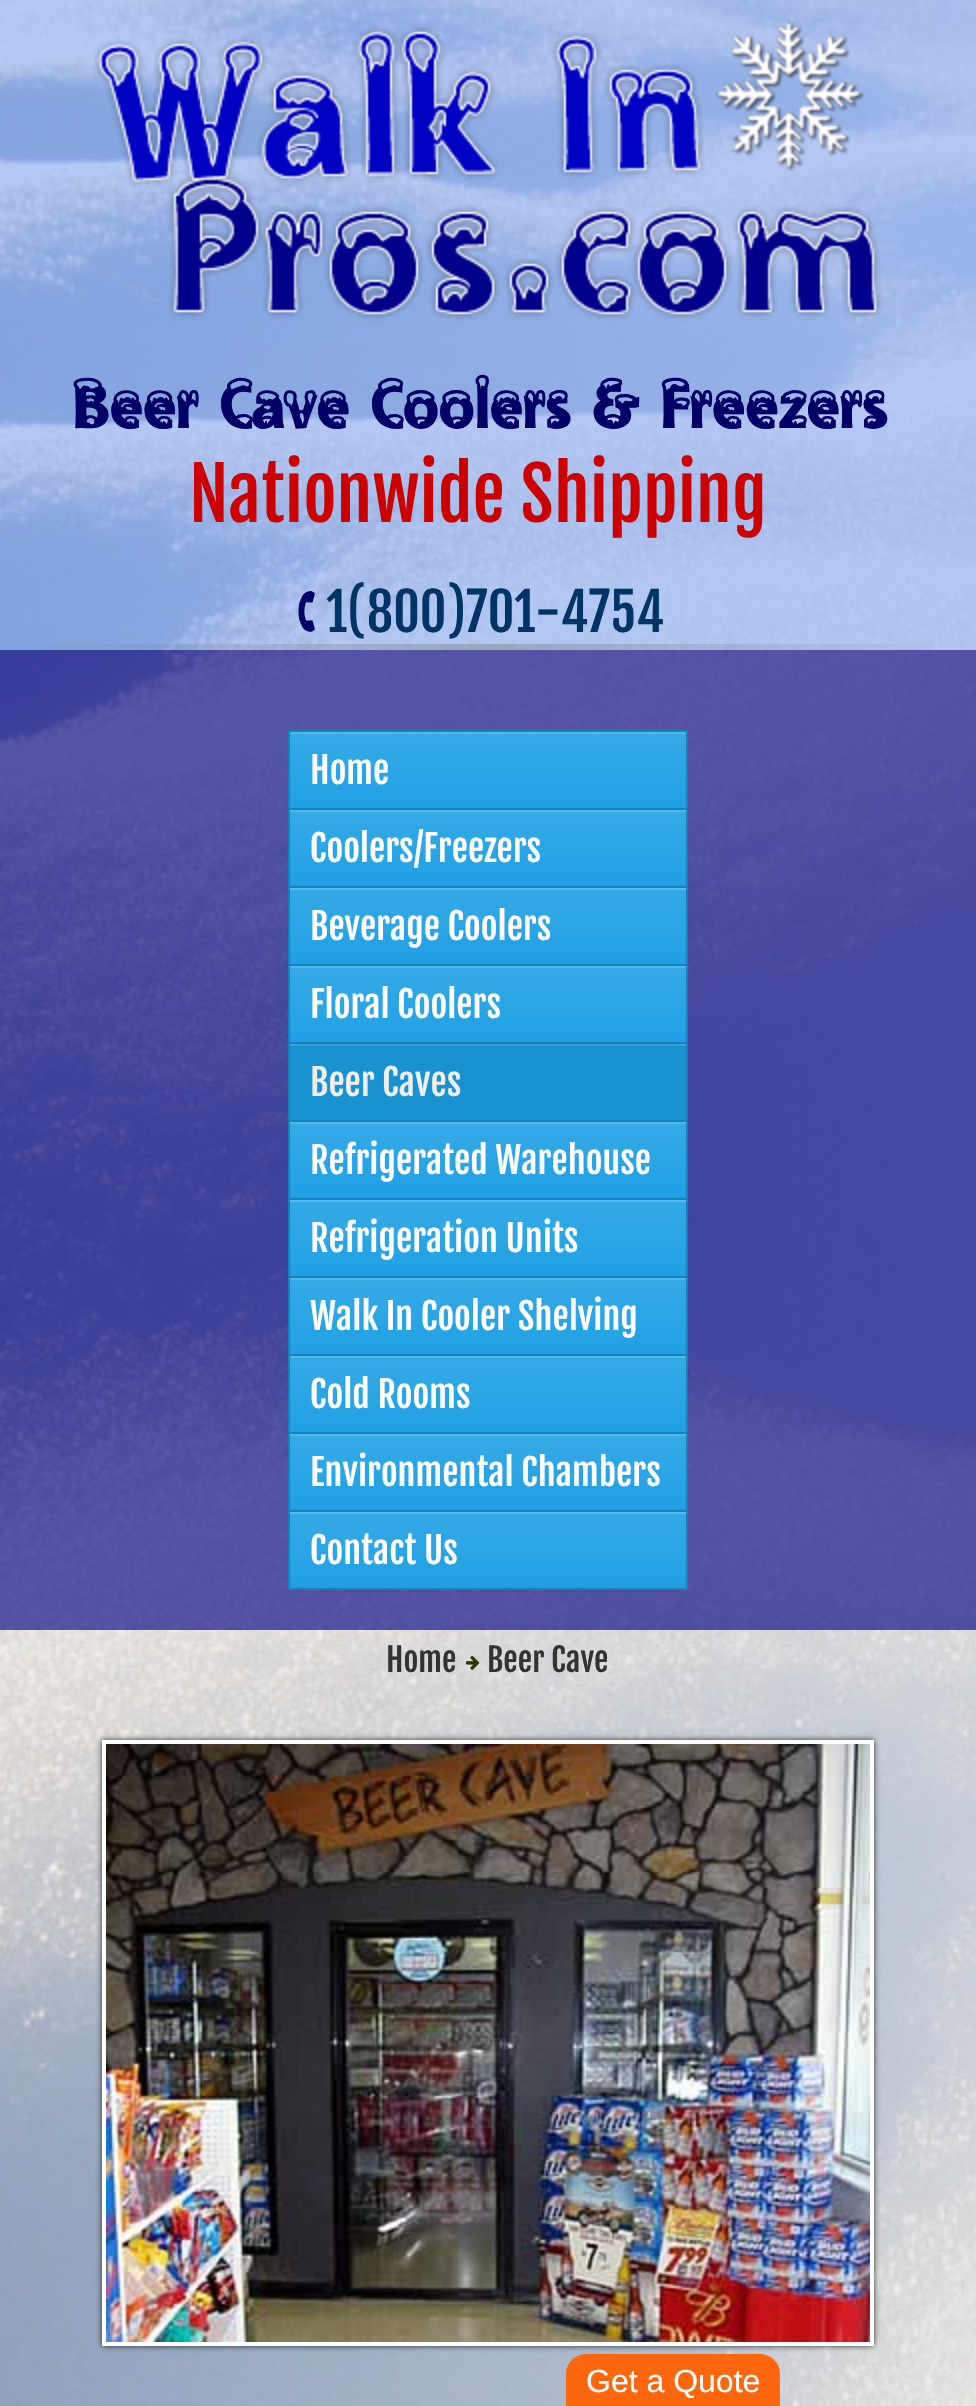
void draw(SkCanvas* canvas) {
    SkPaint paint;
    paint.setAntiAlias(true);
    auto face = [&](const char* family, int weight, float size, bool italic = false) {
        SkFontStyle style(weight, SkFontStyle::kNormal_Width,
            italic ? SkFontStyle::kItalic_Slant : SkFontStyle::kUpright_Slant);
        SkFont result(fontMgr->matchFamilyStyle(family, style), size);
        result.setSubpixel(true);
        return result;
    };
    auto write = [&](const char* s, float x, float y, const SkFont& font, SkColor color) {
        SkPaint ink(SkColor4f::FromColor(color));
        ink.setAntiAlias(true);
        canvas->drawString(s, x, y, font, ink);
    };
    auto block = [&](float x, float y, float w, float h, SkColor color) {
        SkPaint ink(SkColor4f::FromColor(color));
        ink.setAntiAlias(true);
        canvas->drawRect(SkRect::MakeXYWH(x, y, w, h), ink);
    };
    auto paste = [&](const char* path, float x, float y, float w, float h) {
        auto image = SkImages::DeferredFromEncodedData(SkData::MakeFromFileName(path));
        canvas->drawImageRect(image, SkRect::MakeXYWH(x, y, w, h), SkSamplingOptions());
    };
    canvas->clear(SK_ColorWHITE);
    paste("pic1.png", 0, 0, 976, 2406);
    paste("pic2.png", 0, 0, 976, 2406);
    block(0, 0, 976, 650, SkColorSetARGB(112, 102, 153, 255));
    paste("pic3.png", 94, 19, 788, 302);
    auto kFont1 = face("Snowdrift", 700, 60);
    write("Beer Cave Coolers & Freezers", 70, 428, kFont1, SkColorSetRGB(0, 0, 102));
    auto kFont2 = face("Fjalla One", 400, 72);
    write("Nationwide Shipping", 189, 522, kFont2, SkColorSetRGB(204, 0, 0));
    paste("pic4.png", 298, 591, 17, 41);
    auto kFont3 = face("Fjalla One", 400, 52);
    write("1(800)701-4754", 326, 632, kFont3, SkColorSetRGB(0, 51, 102));
    {
        const SkColor colors[] = {SkColorSetARGB(0, 70, 77, 38), SkColorSetARGB(64, 70, 77, 38), SkColorSetARGB(0, 70, 77, 38)};
        const float stops[] = {0, 0.5f, 1};
        const SkPoint ends[] = {{0, 647}, {976, 647}};
        paint.setShader(SkGradientShader::MakeLinear(ends, colors, stops, 3, SkTileMode::kClamp));
        paint.setAlpha(255);
    }
    canvas->drawRect(SkRect::MakeXYWH(42, 644, 892, 6), paint);
    block(0, 650, 976, 980, SkColorSetARGB(163, 0, 0, 128));
    {
        const SkColor colors[] = {SkColorSetRGB(54, 170, 231), SkColorSetRGB(31, 160, 228)};
        const float stops[] = {0, 1};
        const SkPoint ends[] = {{488, 732}, {488, 808}};
        paint.setShader(SkGradientShader::MakeLinear(ends, colors, stops, 2, SkTileMode::kClamp));
        paint.setAlpha(255);
    }
    canvas->drawRect(SkRect::MakeXYWH(290, 734, 396, 74), paint);
    block(290, 732, 396, 2, SkColorSetRGB(84, 183, 235));
    block(288, 730, 400, 2, SkColorSetRGB(22, 130, 186));
    block(686, 730, 2, 78, SkColorSetRGB(22, 130, 186));
    block(288, 730, 2, 78, SkColorSetRGB(22, 130, 186));
    auto kFont4 = face("Fjalla One", 400, 36);
    write("Home", 310, 784, kFont4, SK_ColorWHITE);
    {
        const SkColor colors[] = {SkColorSetRGB(54, 170, 231), SkColorSetRGB(31, 160, 228)};
        const float stops[] = {0, 1};
        const SkPoint ends[] = {{488, 810}, {488, 886}};
        paint.setShader(SkGradientShader::MakeLinear(ends, colors, stops, 2, SkTileMode::kClamp));
        paint.setAlpha(255);
    }
    canvas->drawRect(SkRect::MakeXYWH(290, 812, 396, 74), paint);
    block(290, 810, 396, 2, SkColorSetRGB(84, 183, 235));
    block(288, 808, 400, 2, SkColorSetRGB(22, 130, 186));
    block(686, 808, 2, 78, SkColorSetRGB(22, 130, 186));
    block(288, 808, 2, 78, SkColorSetRGB(22, 130, 186));
    write("Coolers/Freezers", 310, 862, kFont4, SK_ColorWHITE);
    {
        const SkColor colors[] = {SkColorSetRGB(54, 170, 231), SkColorSetRGB(31, 160, 228)};
        const float stops[] = {0, 1};
        const SkPoint ends[] = {{488, 888}, {488, 964}};
        paint.setShader(SkGradientShader::MakeLinear(ends, colors, stops, 2, SkTileMode::kClamp));
        paint.setAlpha(255);
    }
    canvas->drawRect(SkRect::MakeXYWH(290, 890, 396, 74), paint);
    block(290, 888, 396, 2, SkColorSetRGB(84, 183, 235));
    block(288, 886, 400, 2, SkColorSetRGB(22, 130, 186));
    block(686, 886, 2, 78, SkColorSetRGB(22, 130, 186));
    block(288, 886, 2, 78, SkColorSetRGB(22, 130, 186));
    write("Beverage Coolers", 310, 940, kFont4, SK_ColorWHITE);
    {
        const SkColor colors[] = {SkColorSetRGB(54, 170, 231), SkColorSetRGB(31, 160, 228)};
        const float stops[] = {0, 1};
        const SkPoint ends[] = {{488, 966}, {488, 1042}};
        paint.setShader(SkGradientShader::MakeLinear(ends, colors, stops, 2, SkTileMode::kClamp));
        paint.setAlpha(255);
    }
    canvas->drawRect(SkRect::MakeXYWH(290, 968, 396, 74), paint);
    block(290, 966, 396, 2, SkColorSetRGB(84, 183, 235));
    block(288, 964, 400, 2, SkColorSetRGB(22, 130, 186));
    block(686, 964, 2, 78, SkColorSetRGB(22, 130, 186));
    block(288, 964, 2, 78, SkColorSetRGB(22, 130, 186));
    write("Floral Coolers", 310, 1018, kFont4, SK_ColorWHITE);
    block(290, 1046, 396, 74, SkColorSetRGB(25, 146, 209));
    block(290, 1044, 396, 2, SkColorSetRGB(60, 162, 216));
    block(288, 1042, 400, 2, SkColorSetRGB(22, 130, 186));
    block(686, 1042, 2, 78, SkColorSetRGB(22, 130, 186));
    block(288, 1042, 2, 78, SkColorSetRGB(22, 130, 186));
    write("Beer Caves", 310, 1096, kFont4, SkColorSetRGB(238, 238, 238));
    {
        const SkColor colors[] = {SkColorSetRGB(54, 170, 231), SkColorSetRGB(31, 160, 228)};
        const float stops[] = {0, 1};
        const SkPoint ends[] = {{488, 1122}, {488, 1198}};
        paint.setShader(SkGradientShader::MakeLinear(ends, colors, stops, 2, SkTileMode::kClamp));
        paint.setAlpha(255);
    }
    canvas->drawRect(SkRect::MakeXYWH(290, 1124, 396, 74), paint);
    block(290, 1122, 396, 2, SkColorSetRGB(84, 183, 235));
    block(288, 1120, 400, 2, SkColorSetRGB(22, 130, 186));
    block(686, 1120, 2, 78, SkColorSetRGB(22, 130, 186));
    block(288, 1120, 2, 78, SkColorSetRGB(22, 130, 186));
    write("Refrigerated Warehouse", 310, 1174, kFont4, SK_ColorWHITE);
    {
        const SkColor colors[] = {SkColorSetRGB(54, 170, 231), SkColorSetRGB(31, 160, 228)};
        const float stops[] = {0, 1};
        const SkPoint ends[] = {{488, 1200}, {488, 1276}};
        paint.setShader(SkGradientShader::MakeLinear(ends, colors, stops, 2, SkTileMode::kClamp));
        paint.setAlpha(255);
    }
    canvas->drawRect(SkRect::MakeXYWH(290, 1202, 396, 74), paint);
    block(290, 1200, 396, 2, SkColorSetRGB(84, 183, 235));
    block(288, 1198, 400, 2, SkColorSetRGB(22, 130, 186));
    block(686, 1198, 2, 78, SkColorSetRGB(22, 130, 186));
    block(288, 1198, 2, 78, SkColorSetRGB(22, 130, 186));
    write("Refrigeration Units", 310, 1252, kFont4, SK_ColorWHITE);
    {
        const SkColor colors[] = {SkColorSetRGB(54, 170, 231), SkColorSetRGB(31, 160, 228)};
        const float stops[] = {0, 1};
        const SkPoint ends[] = {{488, 1278}, {488, 1354}};
        paint.setShader(SkGradientShader::MakeLinear(ends, colors, stops, 2, SkTileMode::kClamp));
        paint.setAlpha(255);
    }
    canvas->drawRect(SkRect::MakeXYWH(290, 1280, 396, 74), paint);
    block(290, 1278, 396, 2, SkColorSetRGB(84, 183, 235));
    block(288, 1276, 400, 2, SkColorSetRGB(22, 130, 186));
    block(686, 1276, 2, 78, SkColorSetRGB(22, 130, 186));
    block(288, 1276, 2, 78, SkColorSetRGB(22, 130, 186));
    write("Walk In Cooler Shelving", 310, 1330, kFont4, SK_ColorWHITE);
    {
        const SkColor colors[] = {SkColorSetRGB(54, 170, 231), SkColorSetRGB(31, 160, 228)};
        const float stops[] = {0, 1};
        const SkPoint ends[] = {{488, 1356}, {488, 1432}};
        paint.setShader(SkGradientShader::MakeLinear(ends, colors, stops, 2, SkTileMode::kClamp));
        paint.setAlpha(255);
    }
    canvas->drawRect(SkRect::MakeXYWH(290, 1358, 396, 74), paint);
    block(290, 1356, 396, 2, SkColorSetRGB(84, 183, 235));
    block(288, 1354, 400, 2, SkColorSetRGB(22, 130, 186));
    block(686, 1354, 2, 78, SkColorSetRGB(22, 130, 186));
    block(288, 1354, 2, 78, SkColorSetRGB(22, 130, 186));
    write("Cold Rooms", 310, 1408, kFont4, SK_ColorWHITE);
    {
        const SkColor colors[] = {SkColorSetRGB(54, 170, 231), SkColorSetRGB(31, 160, 228)};
        const float stops[] = {0, 1};
        const SkPoint ends[] = {{488, 1434}, {488, 1510}};
        paint.setShader(SkGradientShader::MakeLinear(ends, colors, stops, 2, SkTileMode::kClamp));
        paint.setAlpha(255);
    }
    canvas->drawRect(SkRect::MakeXYWH(290, 1436, 396, 74), paint);
    block(290, 1434, 396, 2, SkColorSetRGB(84, 183, 235));
    block(288, 1432, 400, 2, SkColorSetRGB(22, 130, 186));
    block(686, 1432, 2, 78, SkColorSetRGB(22, 130, 186));
    block(288, 1432, 2, 78, SkColorSetRGB(22, 130, 186));
    write("Environmental Chambers", 310, 1486, kFont4, SK_ColorWHITE);
    {
        const SkColor colors[] = {SkColorSetRGB(54, 170, 231), SkColorSetRGB(31, 160, 228)};
        const float stops[] = {0, 1};
        const SkPoint ends[] = {{488, 1512}, {488, 1588}};
        paint.setShader(SkGradientShader::MakeLinear(ends, colors, stops, 2, SkTileMode::kClamp));
        paint.setAlpha(255);
    }
    canvas->drawRect(SkRect::MakeXYWH(290, 1514, 396, 74), paint);
    block(290, 1512, 396, 2, SkColorSetRGB(84, 183, 235));
    paint.setStyle(SkPaint::kStroke_Style);
    paint.setStrokeWidth(2);
    paint.setShader(nullptr);
    paint.setColor(SkColorSetRGB(22, 130, 186));
    canvas->drawRect(SkRect::MakeXYWH(289, 1511, 398, 78), paint);
    write("Contact Us", 310, 1564, kFont4, SK_ColorWHITE);
    auto kFont5 = face("Fjalla One", 400, 32);
    write("Home", 386, 1672, kFont5, SkColorSetRGB(51, 51, 51));
    paste("pic5.png", 466, 1655, 14, 15);
    write("Beer Cave", 487, 1672, kFont5, SkColorSetRGB(51, 51, 51));
    paint.setStyle(SkPaint::kFill_Style);
    paint.setColor(SkColorSetARGB(191, 0, 0, 0));
    paint.setMaskFilter(SkMaskFilter::MakeBlur(kNormal_SkBlurStyle, 3));
    canvas->drawRect(SkRect::MakeXYWH(102, 1740, 772, 606), paint);
    paint.setMaskFilter(nullptr);
    paint.setStyle(SkPaint::kStroke_Style);
    paint.setStrokeWidth(4);
    paint.setColor(SK_ColorWHITE);
    canvas->drawRect(SkRect::MakeXYWH(104, 1742, 768, 602), paint);
    paste("pic6.png", 106, 1744, 764, 598);
    paint.setStyle(SkPaint::kFill_Style);
    paint.setColor(SkColorSetRGB(255, 103, 15));
    canvas->drawPath(SkPathBuilder().moveTo(586, 2354).lineTo(760, 2354).cubicTo(771, 2354, 780, 2363, 780, 2374).lineTo(780, 2406).lineTo(566, 2406).lineTo(566, 2374).cubicTo(566, 2363, 575, 2354, 586, 2354).close().detach(), paint);
    auto kFont6 = face("Liberation Sans", 400, 32);
    write("Get a Quote", 586, 2392, kFont6, SK_ColorWHITE);
}
